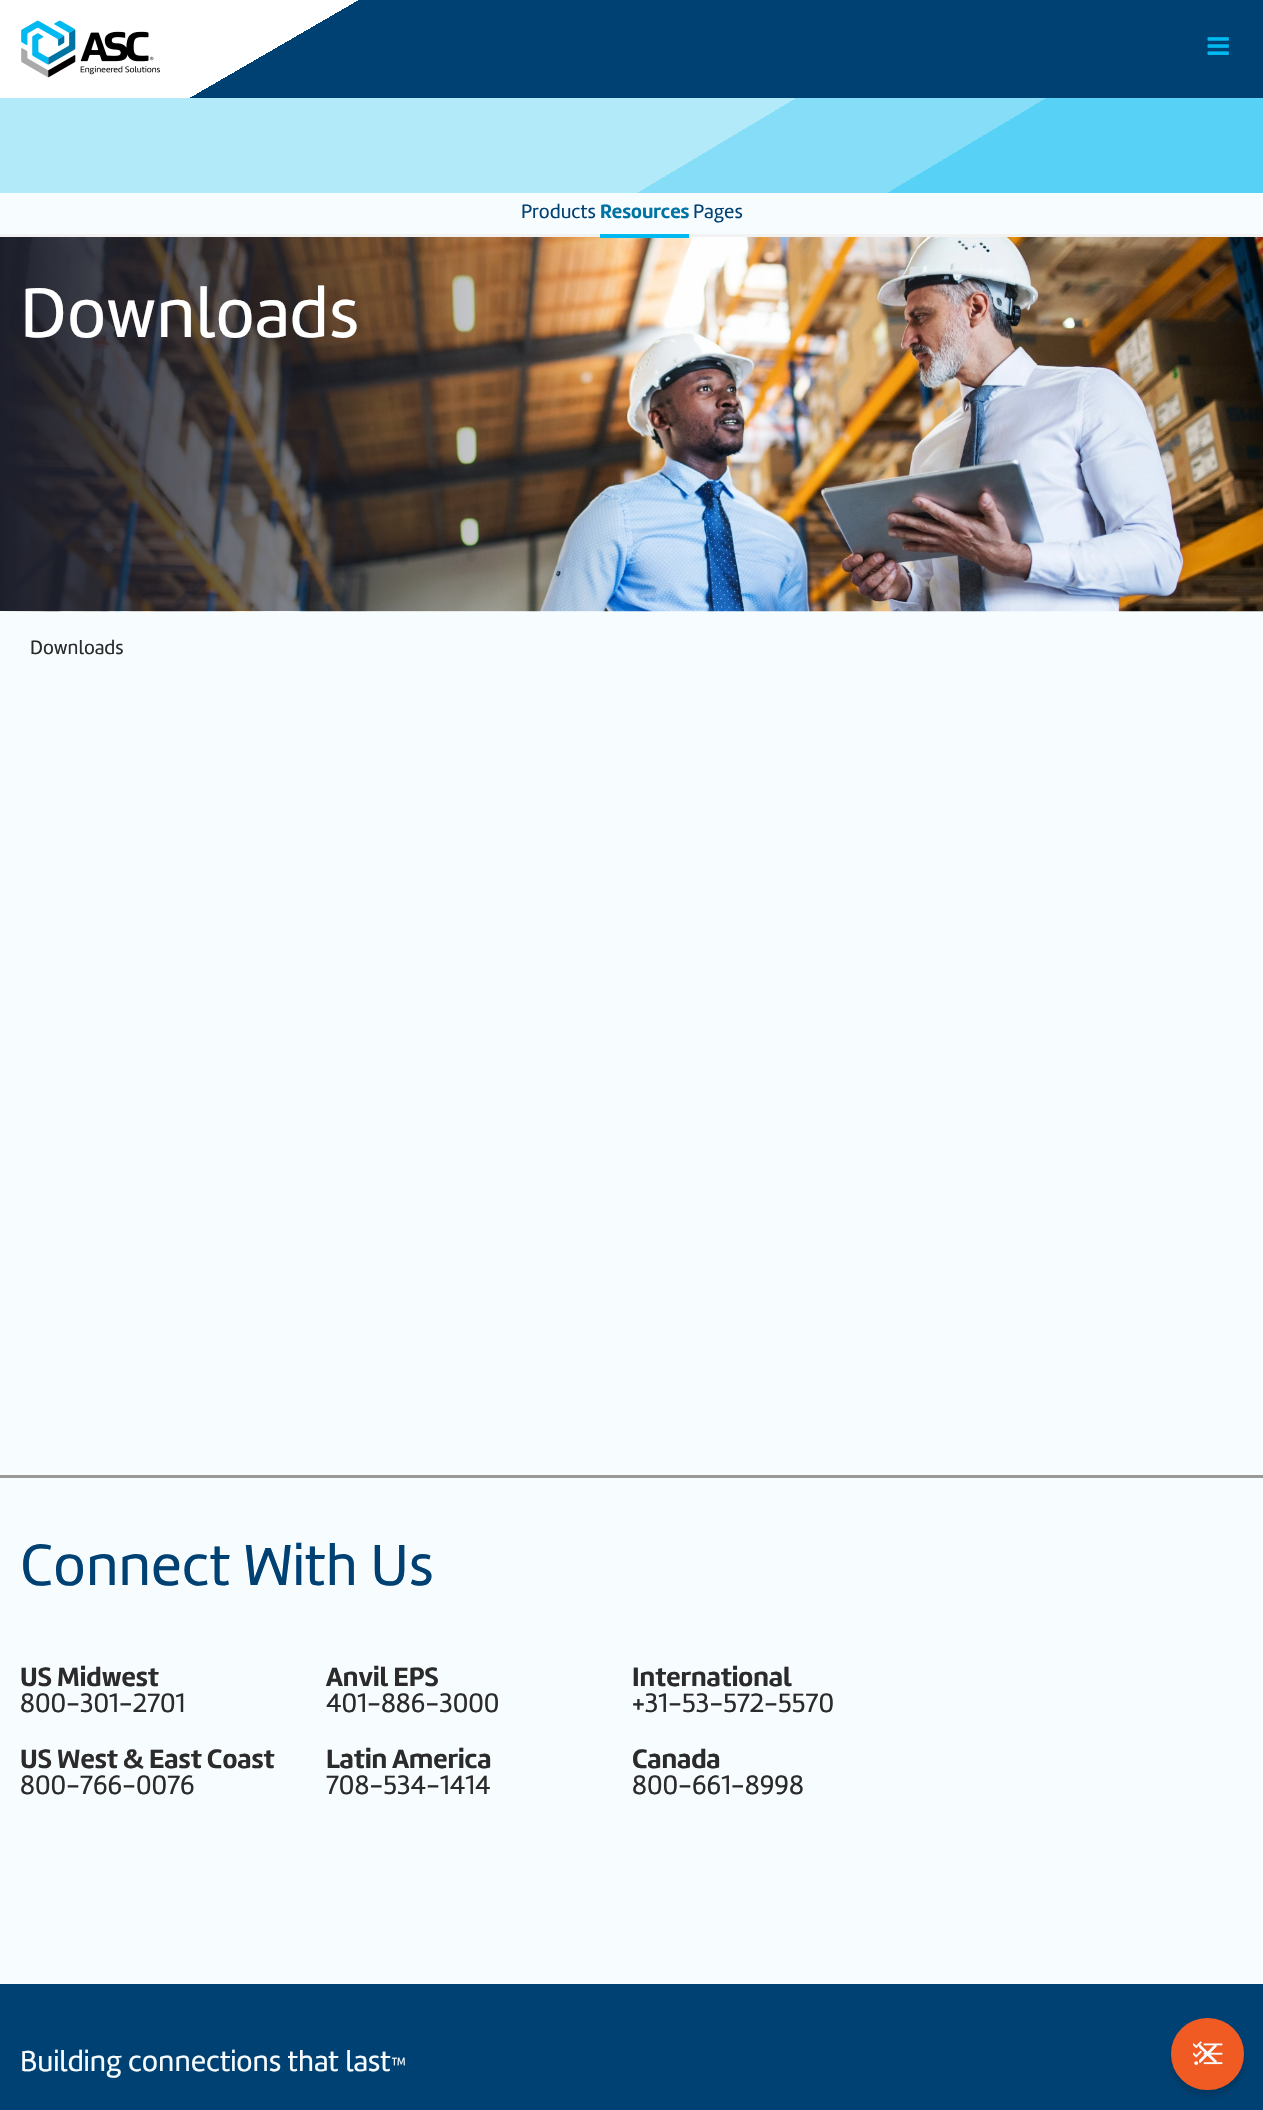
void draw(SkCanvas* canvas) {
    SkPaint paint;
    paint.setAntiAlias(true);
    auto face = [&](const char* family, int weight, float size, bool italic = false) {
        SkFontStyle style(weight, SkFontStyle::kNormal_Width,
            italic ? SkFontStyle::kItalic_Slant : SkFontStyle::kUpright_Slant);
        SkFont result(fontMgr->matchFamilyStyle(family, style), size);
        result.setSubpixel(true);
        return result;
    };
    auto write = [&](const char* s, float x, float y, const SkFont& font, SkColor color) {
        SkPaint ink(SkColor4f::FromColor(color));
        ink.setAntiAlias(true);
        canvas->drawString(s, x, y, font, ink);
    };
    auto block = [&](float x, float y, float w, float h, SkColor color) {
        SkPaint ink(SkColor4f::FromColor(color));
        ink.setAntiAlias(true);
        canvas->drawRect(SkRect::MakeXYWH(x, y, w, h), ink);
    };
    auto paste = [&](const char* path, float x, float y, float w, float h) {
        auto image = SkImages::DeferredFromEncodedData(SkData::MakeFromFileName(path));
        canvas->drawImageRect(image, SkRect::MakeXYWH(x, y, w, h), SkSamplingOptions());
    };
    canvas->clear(SkColorSetRGB(247, 252, 255));
    block(550, 0, 713, 98, SkColorSetRGB(0, 65, 115));
    {
        const SkColor colors[] = {SK_ColorWHITE, SK_ColorWHITE, SkColorSetRGB(0, 65, 115)};
        const float stops[] = {0, 0.5f, 0.5f};
        const SkPoint ends[] = {{185, -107}, {365, 204}};
        paint.setShader(SkGradientShader::MakeLinear(ends, colors, stops, 3, SkTileMode::kClamp));
        paint.setAlpha(255);
    }
    canvas->drawRect(SkRect::MakeXYWH(0, 0, 550, 98), paint);
    paste("pic1.png", 21, 20, 139, 58);
    paste("pic2.png", 1207, 37, 22, 18);
    block(0, 98, 1263, 95, SkColorSetRGB(179, 234, 250));
    {
        const SkColor colors[] = {SkColorSetARGB(0, 0, 185, 240), SkColorSetARGB(64, 0, 185, 240)};
        const float stops[] = {0.5f, 0.5f};
        const SkPoint ends[] = {{882, -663}, {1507, 383}};
        paint.setShader(SkGradientShader::MakeLinear(ends, colors, stops, 2, SkTileMode::kClamp));
        paint.setAlpha(255);
    }
    canvas->drawRect(SkRect::MakeXYWH(638, 98, 625, 95), paint);
    {
        const SkColor colors[] = {SkColorSetARGB(0, 0, 185, 240), SkColorSetARGB(89, 0, 185, 240)};
        const float stops[] = {0.5f, 0.5f};
        const SkPoint ends[] = {{1132, -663}, {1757, 383}};
        paint.setShader(SkGradientShader::MakeLinear(ends, colors, stops, 2, SkTileMode::kClamp));
        paint.setAlpha(255);
    }
    canvas->drawRect(SkRect::MakeXYWH(888, 98, 375, 95), paint);
    block(0, 234, 1263, 3, SkColorSetRGB(242, 242, 242));
    auto kFont1 = face("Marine", 400, 20);
    write("Products", 521, 218, kFont1, SkColorSetRGB(0, 65, 115));
    auto kFont2 = face("Marine", 700, 20);
    write("Resources", 600, 218, kFont2, SkColorSetRGB(0, 115, 165));
    paste("pic3.png", 0, 237, 1263, 375);
    {
        const SkColor colors[] = {SkColorSetRGB(28, 30, 42), SkColorSetARGB(0, 28, 30, 42)};
        const float stops[] = {0, 0.5f};
        const SkPoint ends[] = {{0, 424}, {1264, 424}};
        paint.setShader(SkGradientShader::MakeLinear(ends, colors, stops, 2, SkTileMode::kClamp));
        paint.setAlpha(255);
    }
    canvas->drawRect(SkRect::MakeXYWH(0, 237, 618, 374), paint);
    paint.setShader(nullptr);
    paint.setColor(SkColorSetRGB(0, 185, 240));
    canvas->drawPath(SkPathBuilder().moveTo(600, 234).lineTo(600, 238).lineTo(689, 238).lineTo(689, 181).lineTo(689, 234).close().detach(), paint);
    write("Pages", 693, 218, kFont1, SkColorSetRGB(0, 65, 115));
    auto kFont3 = face("Marine", 400, 72.5f);
    write("Downloads", 20, 337, kFont3, SK_ColorWHITE);
    write("Downloads", 30, 654, kFont1, SkColorSetRGB(43, 43, 43));
    block(0, 1475, 1263, 3, SkColorSetRGB(153, 153, 153));
    auto kFont4 = face("Marine", 400, 60);
    write("Connect With Us", 20, 1585, kFont4, SkColorSetRGB(0, 65, 115));
    auto kFont5 = face("Marine", 700, 27.5f);
    write("US Midwest", 20, 1686, kFont5, SkColorSetRGB(43, 43, 43));
    auto kFont6 = face("Marine", 400, 27.5f);
    write("800-301-2701", 20, 1712, kFont6, SkColorSetRGB(43, 43, 43));
    write("Anvil EPS", 326, 1686, kFont5, SkColorSetRGB(43, 43, 43));
    write("401-886-3000", 326, 1712, kFont6, SkColorSetRGB(43, 43, 43));
    write("International", 632, 1686, kFont5, SkColorSetRGB(43, 43, 43));
    write("+31-53-572-5570", 632, 1712, kFont6, SkColorSetRGB(43, 43, 43));
    write("US West & East Coast", 20, 1768, kFont5, SkColorSetRGB(43, 43, 43));
    write("800-766-0076", 20, 1794, kFont6, SkColorSetRGB(43, 43, 43));
    write("Latin America", 326, 1768, kFont5, SkColorSetRGB(43, 43, 43));
    write("708-534-1414", 326, 1794, kFont6, SkColorSetRGB(43, 43, 43));
    write("Canada", 632, 1768, kFont5, SkColorSetRGB(43, 43, 43));
    write("800-661-8998", 632, 1794, kFont6, SkColorSetRGB(43, 43, 43));
    block(0, 1984, 1263, 126, SkColorSetRGB(0, 65, 115));
    auto kFont7 = face("Marine", 400, 30);
    write("Building connections that last", 20, 2071, kFont7, SkColorSetRGB(247, 252, 255));
    write("™", 391, 2071, kFont1, SkColorSetRGB(247, 252, 255));
    paint.setColor(SkColorSetARGB(38, 0, 0, 0));
    paint.setMaskFilter(SkMaskFilter::MakeBlur(kNormal_SkBlurStyle, 3));
    canvas->drawRoundRect(SkRect::MakeXYWH(1171, 2024, 73, 72), 36, 36, paint);
    paint.setMaskFilter(nullptr);
    paint.setColor(SkColorSetRGB(240, 90, 35));
    canvas->drawRoundRect(SkRect::MakeXYWH(1173, 2020, 69, 68), 34, 34, paint);
    paint.setStyle(SkPaint::kStroke_Style);
    paint.setStrokeWidth(4);
    canvas->drawRoundRect(SkRect::MakeXYWH(1173, 2020, 69, 68), 34, 34, paint);
    paste("pic4.png", 1193, 2041, 30, 24);
    paste("pic5.png", 1199, 2044, 18, 20);
}
